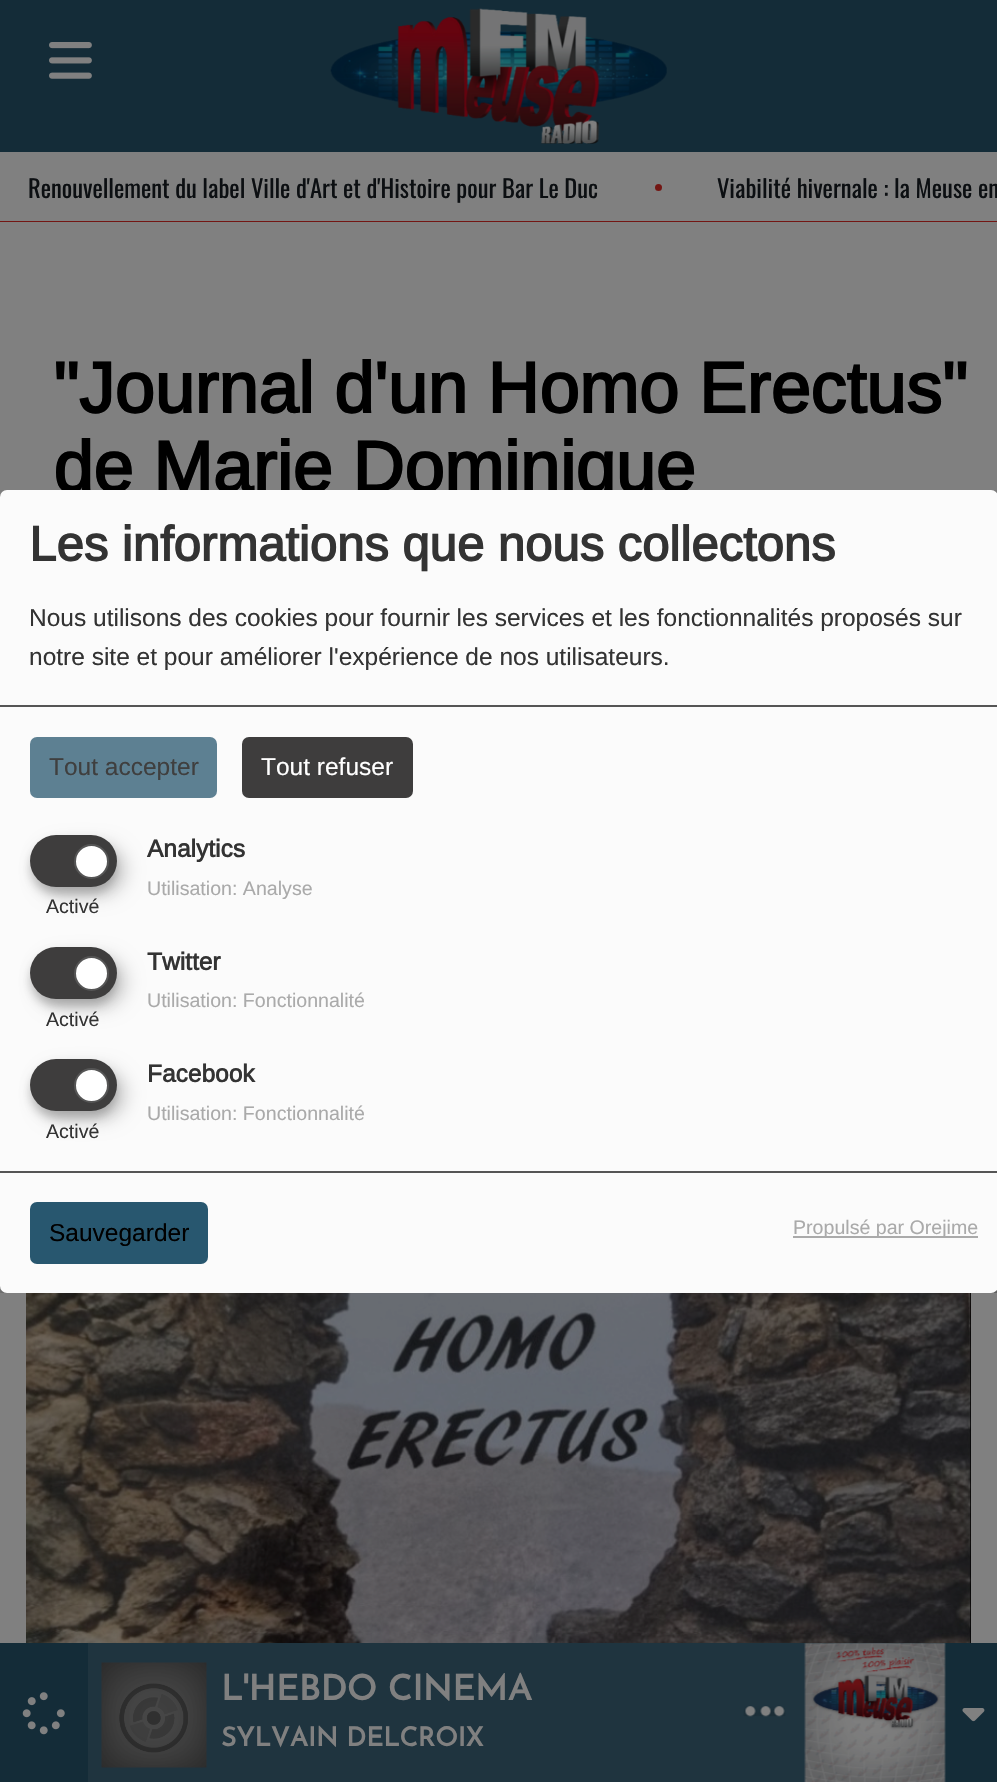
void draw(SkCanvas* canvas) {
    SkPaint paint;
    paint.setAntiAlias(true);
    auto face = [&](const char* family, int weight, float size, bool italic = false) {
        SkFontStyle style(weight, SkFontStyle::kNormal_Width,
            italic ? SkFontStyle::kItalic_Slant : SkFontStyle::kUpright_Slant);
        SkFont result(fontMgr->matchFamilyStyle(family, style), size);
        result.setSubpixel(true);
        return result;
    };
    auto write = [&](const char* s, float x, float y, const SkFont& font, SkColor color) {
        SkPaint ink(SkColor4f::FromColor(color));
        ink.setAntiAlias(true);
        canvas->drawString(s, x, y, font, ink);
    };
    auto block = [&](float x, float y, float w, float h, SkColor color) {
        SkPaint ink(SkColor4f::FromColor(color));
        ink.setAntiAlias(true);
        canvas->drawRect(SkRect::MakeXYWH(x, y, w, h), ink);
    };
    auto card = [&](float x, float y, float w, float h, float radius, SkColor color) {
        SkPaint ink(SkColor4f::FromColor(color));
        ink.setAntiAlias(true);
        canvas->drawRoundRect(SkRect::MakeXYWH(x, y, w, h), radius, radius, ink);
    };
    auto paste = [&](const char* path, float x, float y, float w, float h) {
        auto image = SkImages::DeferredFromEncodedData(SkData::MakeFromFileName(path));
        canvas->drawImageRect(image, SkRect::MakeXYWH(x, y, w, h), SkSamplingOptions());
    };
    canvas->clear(SkColorSetRGB(128, 128, 128));
    block(0, 0, 997, 152, SkColorSetRGB(20, 44, 56));
    paste("pic1.png", 49, 42, 43, 37);
    paste("pic2.png", 330, 8, 337, 136);
    block(0, 221, 997, 1, SkColorSetRGB(115, 22, 19));
    auto kFont1 = face("Oswald", 400, 24.5f);
    write("Renouvellement du label Ville d'Art et d'Histoire pour Bar Le Duc", 28, 198, kFont1, SkColorSetRGB(12, 15, 18));
    paint.setColor(SkColorSetRGB(115, 22, 19));
    canvas->drawCircle(658.5f, 187.5f, 3.5f, paint);
    write("Viabilité hivernale : la Meuse en", 717, 198, kFont1, SkColorSetRGB(12, 15, 18));
    block(0, 1643, 997, 139, SkColorSetRGB(20, 44, 56));
    block(88, 1643, 717, 139, SkColorSetRGB(31, 52, 63));
    paste("pic3.png", 743, 1706, 43, 11);
    paste("pic4.png", 804, 1643, 142, 139);
    paste("pic5.png", 962, 1708, 23, 14);
    paste("pic6.png", 22, 1692, 43, 43);
    paste("pic7.png", 101, 1662, 106, 106);
    auto kFont2 = face("Josefin Sans", 700, 35);
    write("L'HEBDO CINEMA", 221, 1700, kFont2, SkColorSetRGB(128, 128, 128));
    auto kFont3 = face("Josefin Sans", 700, 26.25f);
    write("SYLVAIN DELCROIX", 221, 1746, kFont3, SkColorSetRGB(128, 128, 128));
    auto kFont4 = face("Arimo", 700, 71.75f);
    write("\"Journal d'un Homo Erectus\"", 53, 413, kFont4, SK_ColorBLACK);
    write("de Marie Dominique", 53, 492, kFont4, SK_ColorBLACK);
    paste("pic8.png", 26, 1293, 945, 350);
    canvas->save();
    canvas->clipRect(SkRect::MakeXYWH(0, 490, 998, 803));
    paint.setColor(SkColorSetARGB(48, 0, 0, 0));
    paint.setMaskFilter(SkMaskFilter::MakeBlur(kNormal_SkBlurStyle, 9));
    canvas->drawRoundRect(SkRect::MakeXYWH(9, 499, 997, 803), 7, 7, paint);
    paint.setMaskFilter(nullptr);
    paint.setColor(SkColorSetARGB(51, 0, 0, 0));
    paint.setMaskFilter(SkMaskFilter::MakeBlur(kNormal_SkBlurStyle, 5));
    canvas->drawRoundRect(SkRect::MakeXYWH(0, 497, 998, 803), 7, 7, paint);
    paint.setMaskFilter(nullptr);
    canvas->restore();
    card(0, 490, 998, 803, 7, SkColorSetRGB(251, 251, 251));
    block(0, 705, 997, 2, SkColorSetRGB(85, 85, 85));
    auto kFont5 = face("Arimo", 700, 49);
    write("Les informations que nous collectons", 29, 561, kFont5, SkColorSetRGB(51, 51, 51));
    auto kFont6 = face("Arimo", 400, 24.5f);
    write("Nous utilisons des cookies pour fournir les services et les fonctionnalités proposés sur", 29, 626, kFont6, SkColorSetRGB(51, 51, 51));
    write("notre site et pour améliorer l'expérience de nos utilisateurs.", 29, 665, kFont6, SkColorSetRGB(51, 51, 51));
    card(30, 737, 187, 61, 7, SkColorSetRGB(93, 128, 146));
    write("Tout accepter", 49, 775, kFont6, SkColorSetRGB(63, 63, 63));
    card(242, 737, 171, 61, 7, SkColorSetRGB(62, 61, 61));
    write("Tout refuser", 261, 775, kFont6, SK_ColorWHITE);
    auto kFont7 = face("Arimo", 700, 24.5f);
    write("Analytics", 147, 857, kFont7, SkColorSetRGB(51, 51, 51));
    paint.setColor(SkColorSetARGB(48, 0, 0, 0));
    paint.setMaskFilter(SkMaskFilter::MakeBlur(kNormal_SkBlurStyle, 9));
    canvas->drawRoundRect(SkRect::MakeXYWH(39, 844, 87, 52), 26, 26, paint);
    paint.setMaskFilter(nullptr);
    paint.setColor(SkColorSetARGB(51, 0, 0, 0));
    paint.setMaskFilter(SkMaskFilter::MakeBlur(kNormal_SkBlurStyle, 5));
    canvas->drawRoundRect(SkRect::MakeXYWH(30, 842, 87, 52), 26, 26, paint);
    paint.setMaskFilter(nullptr);
    card(30, 835, 87, 52, 26, SkColorSetRGB(62, 61, 61));
    paint.setColor(SK_ColorWHITE);
    canvas->drawCircle(91.5f, 861.5f, 16.5f, paint);
    paint.setStyle(SkPaint::kStroke_Style);
    paint.setStrokeWidth(2);
    paint.setColor(SkColorSetRGB(85, 85, 85));
    canvas->drawCircle(91.5f, 861.5f, 16.5f, paint);
    auto kFont8 = face("Arimo", 400, 19.6f);
    write("Activé", 46, 913, kFont8, SkColorSetRGB(51, 51, 51));
    write("Utilisation: Analyse", 147, 895, kFont8, SkColorSetRGB(170, 170, 170));
    write("Twitter", 147, 970, kFont7, SkColorSetRGB(51, 51, 51));
    paint.setStyle(SkPaint::kFill_Style);
    paint.setColor(SkColorSetARGB(48, 0, 0, 0));
    paint.setMaskFilter(SkMaskFilter::MakeBlur(kNormal_SkBlurStyle, 9));
    canvas->drawRoundRect(SkRect::MakeXYWH(39, 956, 87, 52), 26, 26, paint);
    paint.setMaskFilter(nullptr);
    paint.setColor(SkColorSetARGB(51, 0, 0, 0));
    paint.setMaskFilter(SkMaskFilter::MakeBlur(kNormal_SkBlurStyle, 5));
    canvas->drawRoundRect(SkRect::MakeXYWH(30, 954, 87, 52), 26, 26, paint);
    paint.setMaskFilter(nullptr);
    card(30, 947, 87, 52, 26, SkColorSetRGB(62, 61, 61));
    paint.setColor(SK_ColorWHITE);
    canvas->drawCircle(91.5f, 973.5f, 16.5f, paint);
    paint.setStyle(SkPaint::kStroke_Style);
    paint.setColor(SkColorSetRGB(85, 85, 85));
    canvas->drawCircle(91.5f, 973.5f, 16.5f, paint);
    write("Activé", 46, 1026, kFont8, SkColorSetRGB(51, 51, 51));
    write("Utilisation: Fonctionnalité", 147, 1007, kFont8, SkColorSetRGB(170, 170, 170));
    write("Facebook", 147, 1082, kFont7, SkColorSetRGB(51, 51, 51));
    paint.setStyle(SkPaint::kFill_Style);
    paint.setColor(SkColorSetARGB(48, 0, 0, 0));
    paint.setMaskFilter(SkMaskFilter::MakeBlur(kNormal_SkBlurStyle, 9));
    canvas->drawRoundRect(SkRect::MakeXYWH(39, 1068, 87, 52), 26, 26, paint);
    paint.setMaskFilter(nullptr);
    paint.setColor(SkColorSetARGB(51, 0, 0, 0));
    paint.setMaskFilter(SkMaskFilter::MakeBlur(kNormal_SkBlurStyle, 5));
    canvas->drawRoundRect(SkRect::MakeXYWH(30, 1066, 87, 52), 26, 26, paint);
    paint.setMaskFilter(nullptr);
    card(30, 1059, 87, 52, 26, SkColorSetRGB(62, 61, 61));
    paint.setColor(SK_ColorWHITE);
    canvas->drawCircle(91.5f, 1085.5f, 16.5f, paint);
    paint.setStyle(SkPaint::kStroke_Style);
    paint.setColor(SkColorSetRGB(85, 85, 85));
    canvas->drawCircle(91.5f, 1085.5f, 16.5f, paint);
    write("Activé", 46, 1138, kFont8, SkColorSetRGB(51, 51, 51));
    write("Utilisation: Fonctionnalité", 147, 1120, kFont8, SkColorSetRGB(170, 170, 170));
    block(0, 1171, 997, 2, SkColorSetRGB(85, 85, 85));
    card(30, 1202, 178, 62, 7, SkColorSetRGB(40, 87, 111));
    write("Sauvegarder", 49, 1241, kFont6, SK_ColorBLACK);
    block(793, 1236, 185, 2, SkColorSetRGB(170, 170, 170));
    write("Propulsé par Orejime", 793, 1234, kFont8, SkColorSetRGB(170, 170, 170));
}
